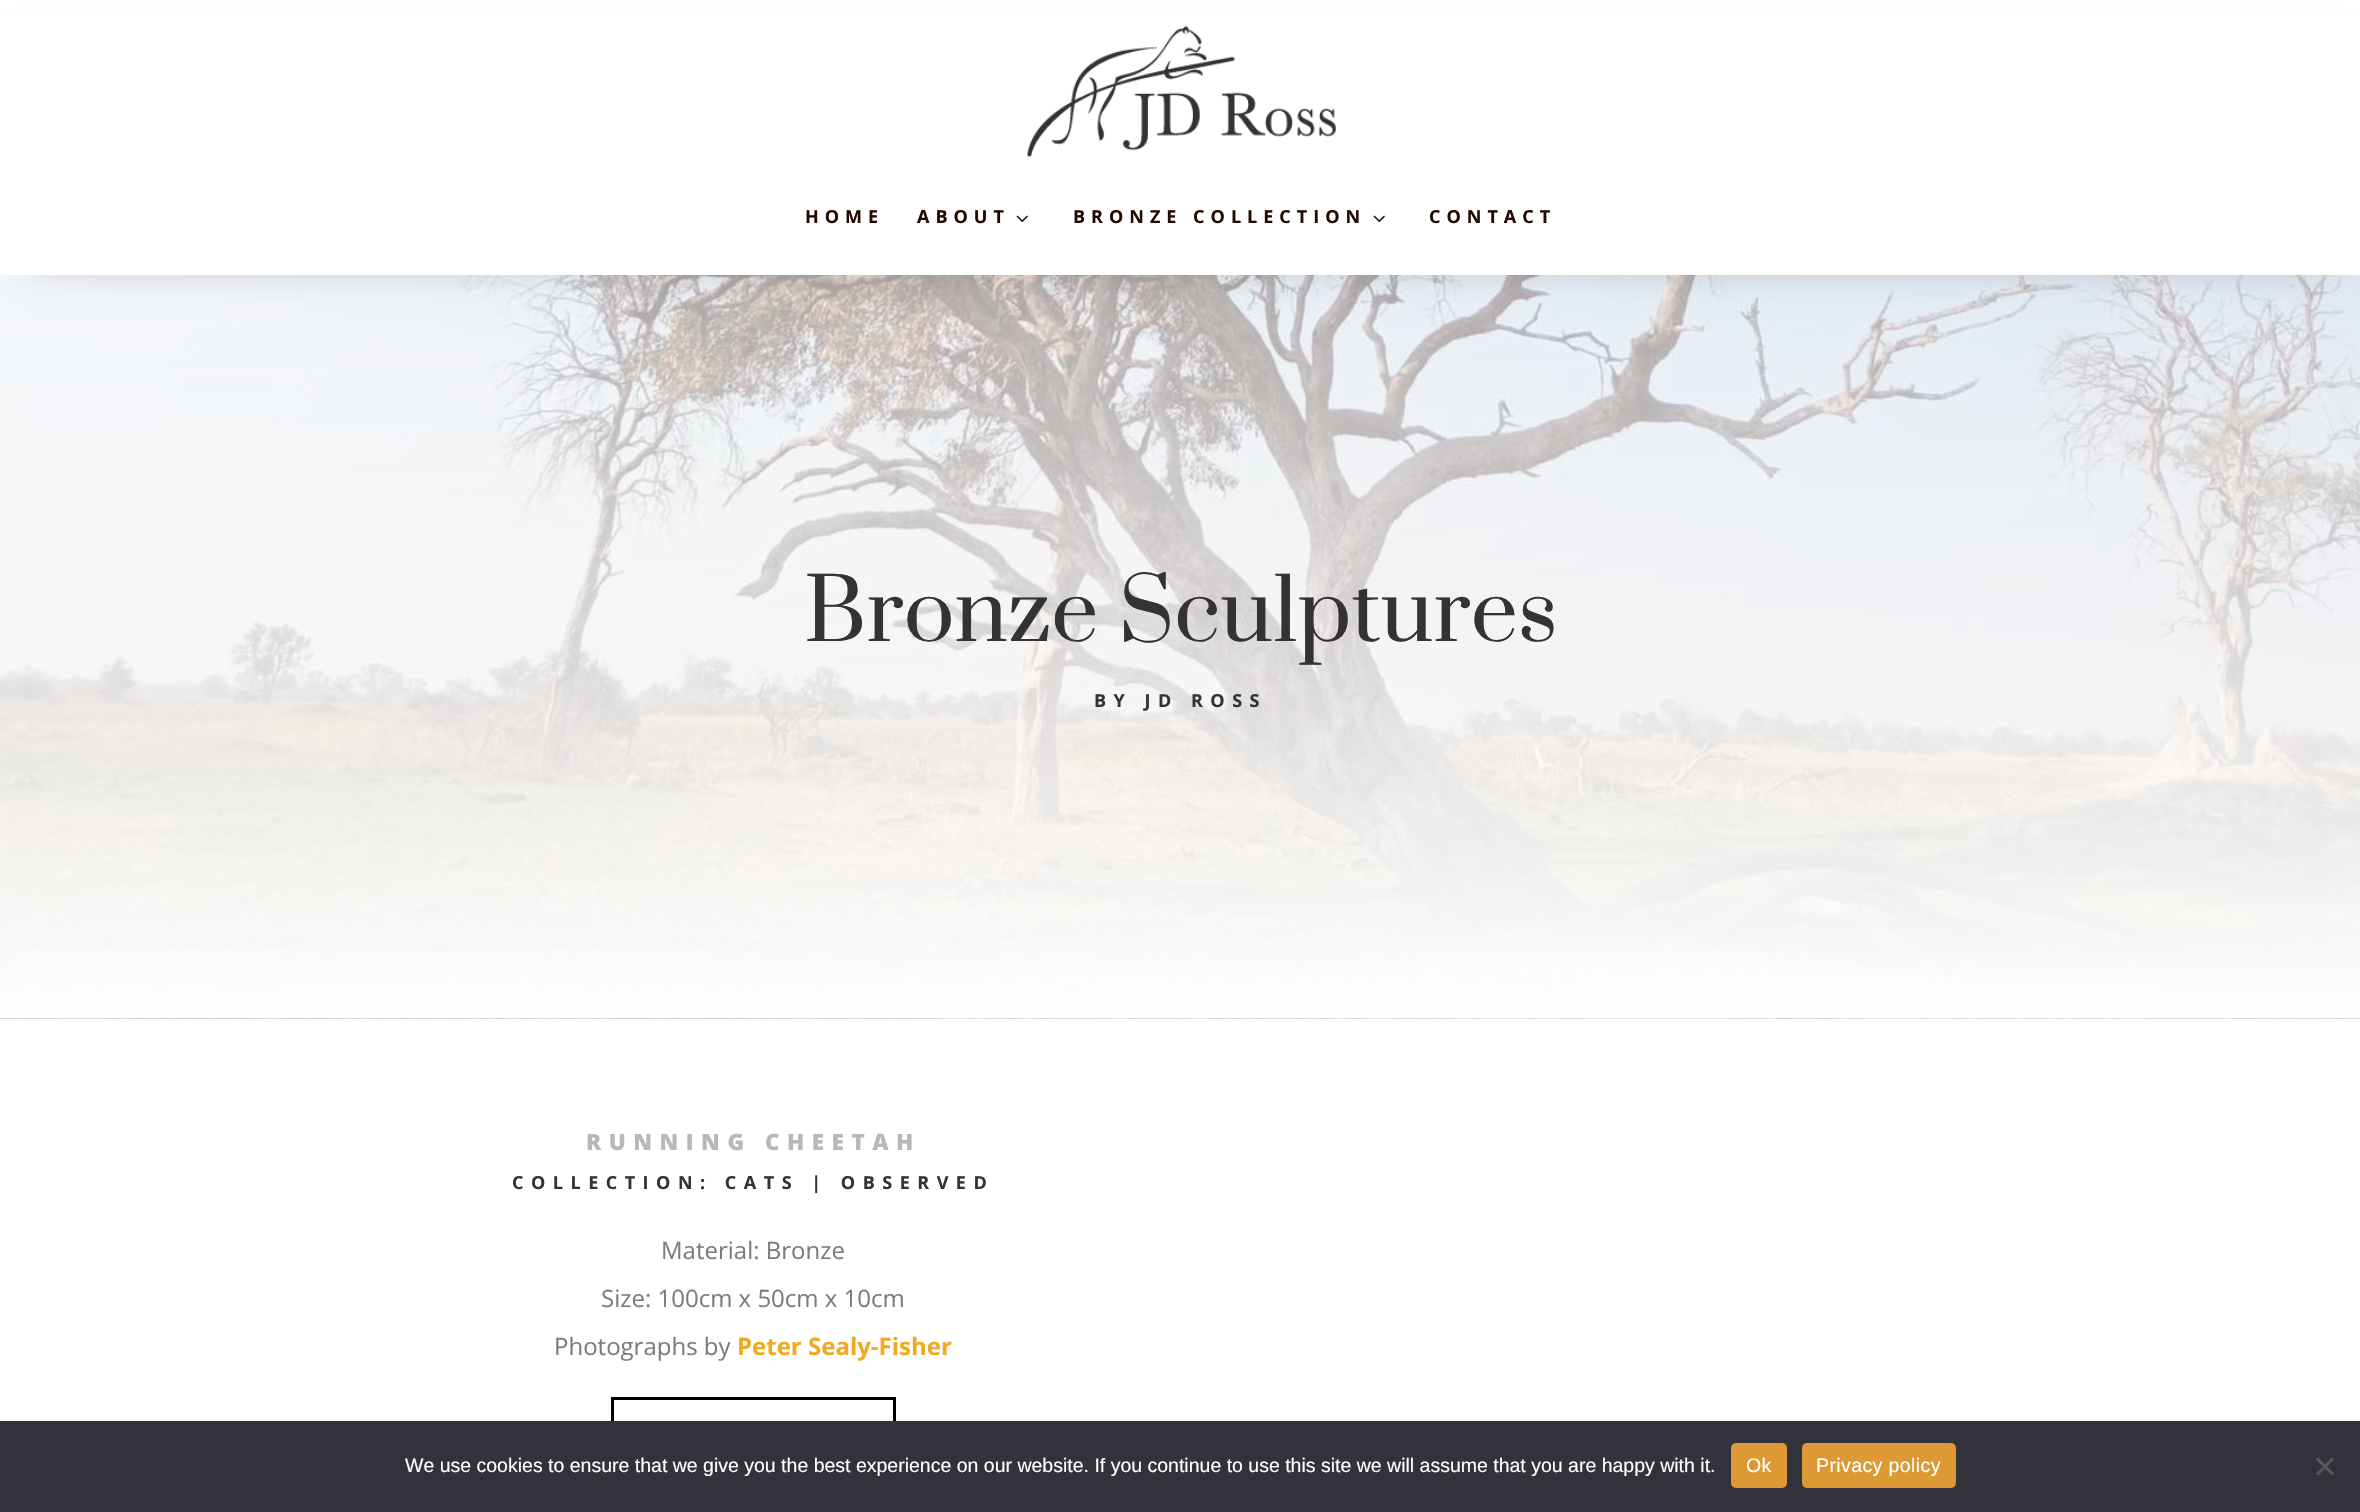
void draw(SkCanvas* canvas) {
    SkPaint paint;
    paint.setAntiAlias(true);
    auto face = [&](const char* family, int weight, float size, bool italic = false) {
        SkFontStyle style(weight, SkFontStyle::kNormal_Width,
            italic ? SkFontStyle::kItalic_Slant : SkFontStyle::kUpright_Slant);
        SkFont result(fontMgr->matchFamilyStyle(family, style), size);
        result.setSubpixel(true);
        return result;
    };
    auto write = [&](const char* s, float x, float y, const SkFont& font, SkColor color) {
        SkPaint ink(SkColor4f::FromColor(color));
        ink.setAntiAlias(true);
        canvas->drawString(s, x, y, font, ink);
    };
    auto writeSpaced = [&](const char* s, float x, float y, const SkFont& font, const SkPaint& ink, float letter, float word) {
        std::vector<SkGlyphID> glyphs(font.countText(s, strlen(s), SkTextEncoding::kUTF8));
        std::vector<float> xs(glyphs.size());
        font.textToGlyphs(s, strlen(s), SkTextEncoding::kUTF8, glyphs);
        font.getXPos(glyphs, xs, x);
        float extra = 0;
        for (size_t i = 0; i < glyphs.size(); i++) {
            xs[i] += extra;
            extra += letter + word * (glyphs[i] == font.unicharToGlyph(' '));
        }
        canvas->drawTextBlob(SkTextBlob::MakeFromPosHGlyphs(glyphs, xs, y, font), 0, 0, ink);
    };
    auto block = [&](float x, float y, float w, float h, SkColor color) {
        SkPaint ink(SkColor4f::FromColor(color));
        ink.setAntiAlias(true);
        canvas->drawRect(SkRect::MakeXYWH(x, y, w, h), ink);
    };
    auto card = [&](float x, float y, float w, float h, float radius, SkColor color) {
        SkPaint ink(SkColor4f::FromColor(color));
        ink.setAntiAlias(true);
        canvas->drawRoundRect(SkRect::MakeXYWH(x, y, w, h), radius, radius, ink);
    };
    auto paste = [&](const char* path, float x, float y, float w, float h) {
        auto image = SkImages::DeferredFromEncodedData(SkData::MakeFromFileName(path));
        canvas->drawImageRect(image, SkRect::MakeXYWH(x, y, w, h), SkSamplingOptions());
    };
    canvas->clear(SK_ColorWHITE);
    paste("pic3.png", 0, 275, 2360, 744);
    paint.setColor(SkColorSetARGB(77, 0, 0, 0));
    paint.setMaskFilter(SkMaskFilter::MakeBlur(kNormal_SkBlurStyle, 19));
    canvas->drawRect(SkRect::MakeXYWH(32, 50, 2298, 211), paint);
    paint.setMaskFilter(nullptr);
    block(0, 15, 2360, 260, SK_ColorWHITE);
    paste("pic1.png", 1027, 25, 309, 133);
    auto kFont1 = face("Open Sans", 700, 18);
    paint.setColor(SkColorSetRGB(38, 8, 1));
    writeSpaced("HOME", 805, 223, kFont1, paint, 6, 0);
    writeSpaced("ABOUT", 917, 223, kFont1, paint, 6, 0);
    paste("pic2.png", 1016, 215, 12, 7);
    writeSpaced("BRONZE COLLECTION", 1073, 223, kFont1, paint, 6, 0);
    paste("pic2.png", 1373, 215, 12, 7);
    writeSpaced("CONTACT", 1429, 223, kFont1, paint, 6, 0);
    auto kFont2 = face("Prata", 400, 84);
    write("Bronze Sculptures", 804, 641, kFont2, SkColorSetRGB(51, 51, 51));
    paint.setColor(SkColorSetRGB(51, 51, 51));
    writeSpaced("BY JD ROSS", 1094, 707, kFont1, paint, 7.5f, 0);
    auto kFont3 = face("Open Sans", 800, 22.5f);
    paint.setColor(SkColorSetRGB(184, 184, 184));
    writeSpaced("RUNNING CHEETAH", 586, 1150, kFont3, paint, 7.5f, 0);
    paint.setColor(SkColorSetRGB(51, 51, 51));
    writeSpaced("COLLECTION: CATS | OBSERVED", 512, 1189, kFont1, paint, 7.5f, 0);
    auto kFont4 = face("Open Sans", 400, 24);
    write("Material: Bronze", 661, 1259, kFont4, SkColorSetRGB(124, 124, 124));
    write("Size: 100cm x 50cm x 10cm", 601, 1307, kFont4, SkColorSetRGB(124, 124, 124));
    write("Photographs by", 554, 1355, kFont4, SkColorSetRGB(124, 124, 124));
    auto kFont5 = face("Open Sans", 700, 24);
    write("Peter Sealy-Fisher", 737, 1355, kFont5, SkColorSetRGB(242, 169, 34));
    paint.setStyle(SkPaint::kStroke_Style);
    paint.setStrokeWidth(3);
    paint.setColor(SK_ColorBLACK);
    canvas->drawRect(SkRect::MakeXYWH(612.5f, 1398.5f, 282, 81), paint);
    block(0, 1421, 2360, 91, SkColorSetRGB(50, 50, 58));
    auto kFont6 = face("Liberation Sans", 400, 19.5f);
    write("We use cookies to ensure that we give you the best experience on our website. If you continue to use this site we will assume that you are happy with it.", 405, 1472, kFont6, SK_ColorWHITE);
    card(1731, 1443, 56, 45, 5, SkColorSetRGB(221, 153, 51));
    paint.setStyle(SkPaint::kFill_Style);
    paint.setColor(SK_ColorWHITE);
    writeSpaced("Ok", 1746, 1472, kFont6, paint, 0.4f, 0);
    card(1802, 1443, 154, 45, 5, SkColorSetRGB(221, 153, 51));
    writeSpaced("Privacy policy", 1816, 1472, kFont6, paint, 0.4f, 0);
    paint.setColor(SkColorSetRGB(89, 89, 93));
    canvas->drawPath(SkPathBuilder().moveTo(2332, 1457.5f).lineTo(2334, 1459.5f).lineTo(2318, 1475.5f).lineTo(2316, 1473.5f).close().detach(), paint);
    canvas->drawPath(SkPathBuilder().moveTo(2316, 1459.5f).lineTo(2318, 1457.5f).lineTo(2334, 1473.5f).lineTo(2332, 1475.5f).close().detach(), paint);
}
